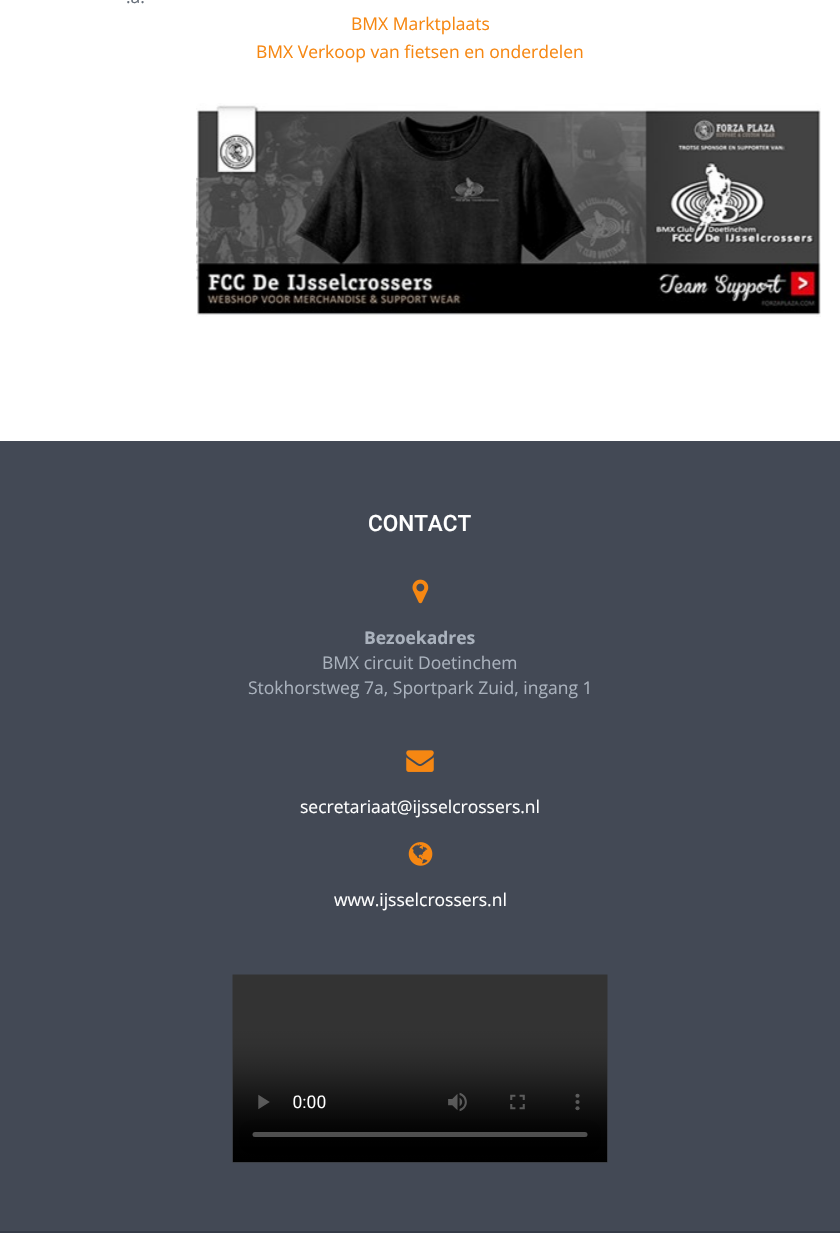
void draw(SkCanvas* canvas) {
    SkPaint paint;
    paint.setAntiAlias(true);
    auto face = [&](const char* family, int weight, float size, bool italic = false) {
        SkFontStyle style(weight, SkFontStyle::kNormal_Width,
            italic ? SkFontStyle::kItalic_Slant : SkFontStyle::kUpright_Slant);
        SkFont result(fontMgr->matchFamilyStyle(family, style), size);
        result.setSubpixel(true);
        return result;
    };
    auto write = [&](const char* s, float x, float y, const SkFont& font, SkColor color) {
        SkPaint ink(SkColor4f::FromColor(color));
        ink.setAntiAlias(true);
        canvas->drawString(s, x, y, font, ink);
    };
    auto block = [&](float x, float y, float w, float h, SkColor color) {
        SkPaint ink(SkColor4f::FromColor(color));
        ink.setAntiAlias(true);
        canvas->drawRect(SkRect::MakeXYWH(x, y, w, h), ink);
    };
    auto paste = [&](const char* path, float x, float y, float w, float h) {
        auto image = SkImages::DeferredFromEncodedData(SkData::MakeFromFileName(path));
        canvas->drawImageRect(image, SkRect::MakeXYWH(x, y, w, h), SkSamplingOptions());
    };
    canvas->clear(SkColorSetRGB(53, 59, 71));
    block(0, 0, 840, 441, SK_ColorWHITE);
    auto kFont1 = face("Open Sans", 400, 17.5f);
    write(".a.", 126, 3, kFont1, SkColorSetRGB(103, 111, 122));
    write("BMX Marktplaats", 351, 30, kFont1, SkColorSetRGB(246, 135, 18));
    write("BMX Verkoop van fietsen en onderdelen", 256, 58, kFont1, SkColorSetRGB(246, 135, 18));
    paste("pic1.png", 196, 103, 625, 214);
    block(0, 441, 840, 790, SkColorSetRGB(67, 73, 85));
    auto kFont2 = face("Roboto", 500, 22.5f);
    write("CONTACT", 368, 531, kFont2, SK_ColorWHITE);
    paste("pic2.png", 412, 579, 17, 25);
    auto kFont3 = face("Open Sans", 700, 17.5f);
    write("Bezoekadres", 364, 644, kFont3, SkColorSetRGB(170, 178, 189));
    write("BMX circuit Doetinchem", 322, 669, kFont1, SkColorSetRGB(170, 178, 189));
    write("Stokhorstweg 7a, Sportpark Zuid, ingang 1", 248, 694, kFont1, SkColorSetRGB(170, 178, 189));
    paste("pic3.png", 406, 750, 28, 22);
    write("secretariaat@ijsselcrossers.nl", 300, 813, kFont1, SK_ColorWHITE);
    paste("pic4.png", 408, 842, 25, 24);
    write("www.ijsselcrossers.nl", 334, 906, kFont1, SK_ColorWHITE);
    paste("pic5.png", 232, 974, 376, 189);
}
